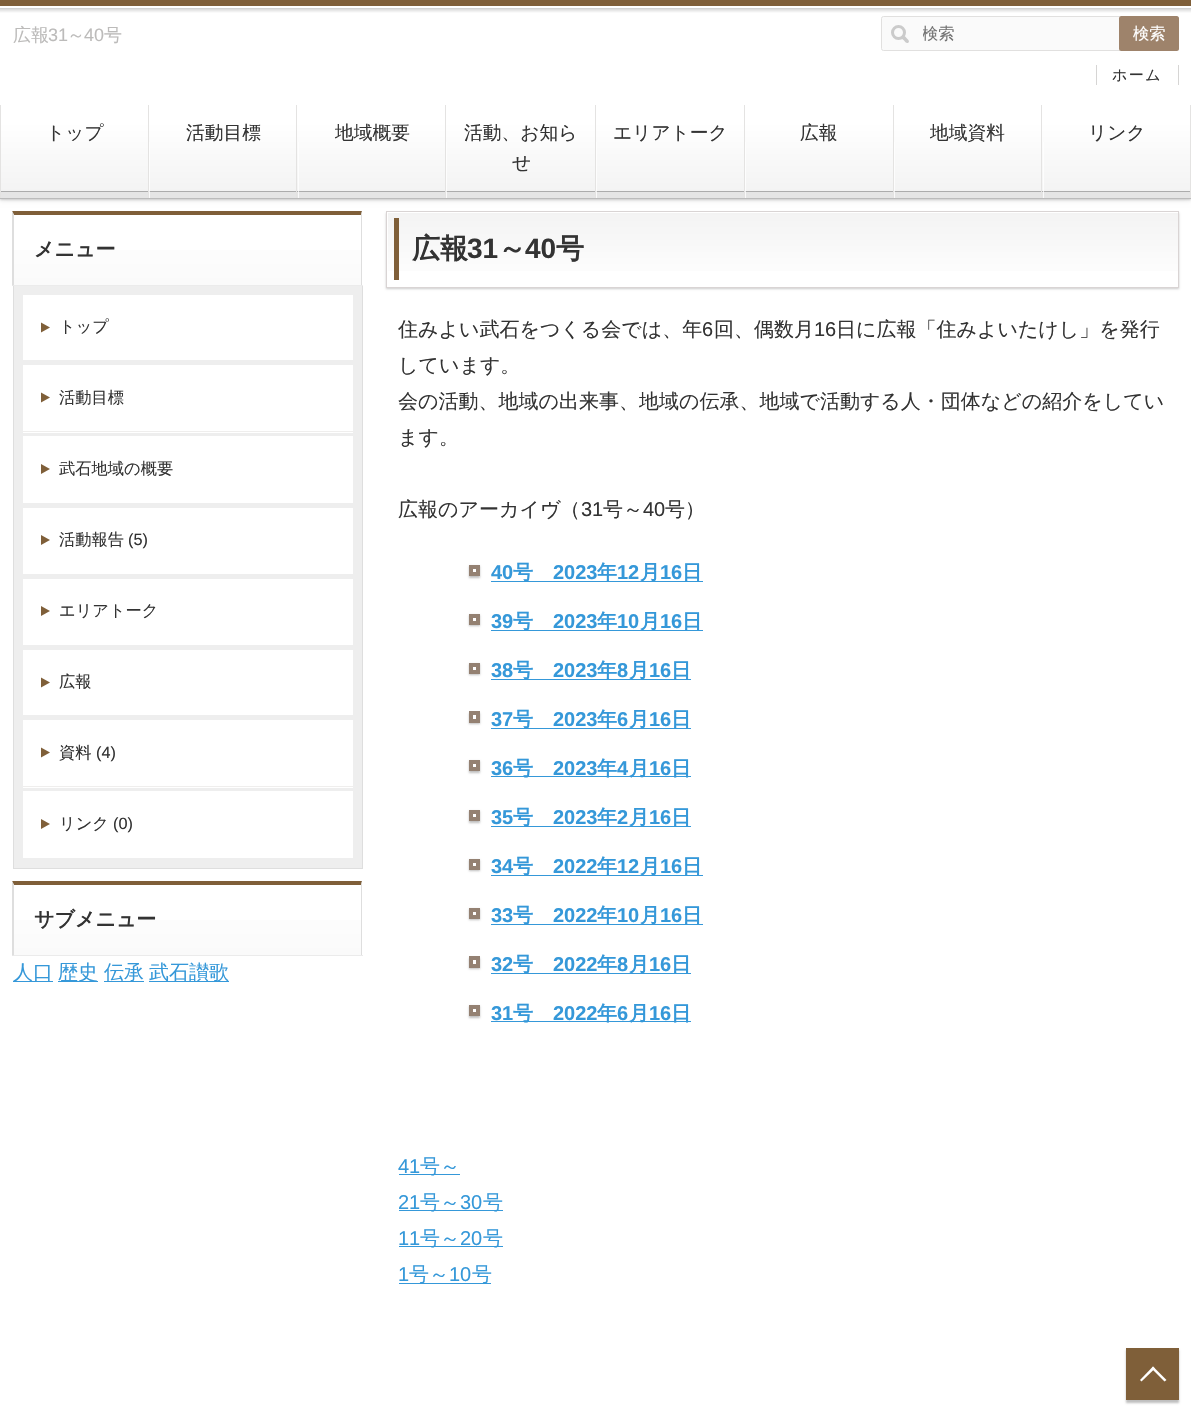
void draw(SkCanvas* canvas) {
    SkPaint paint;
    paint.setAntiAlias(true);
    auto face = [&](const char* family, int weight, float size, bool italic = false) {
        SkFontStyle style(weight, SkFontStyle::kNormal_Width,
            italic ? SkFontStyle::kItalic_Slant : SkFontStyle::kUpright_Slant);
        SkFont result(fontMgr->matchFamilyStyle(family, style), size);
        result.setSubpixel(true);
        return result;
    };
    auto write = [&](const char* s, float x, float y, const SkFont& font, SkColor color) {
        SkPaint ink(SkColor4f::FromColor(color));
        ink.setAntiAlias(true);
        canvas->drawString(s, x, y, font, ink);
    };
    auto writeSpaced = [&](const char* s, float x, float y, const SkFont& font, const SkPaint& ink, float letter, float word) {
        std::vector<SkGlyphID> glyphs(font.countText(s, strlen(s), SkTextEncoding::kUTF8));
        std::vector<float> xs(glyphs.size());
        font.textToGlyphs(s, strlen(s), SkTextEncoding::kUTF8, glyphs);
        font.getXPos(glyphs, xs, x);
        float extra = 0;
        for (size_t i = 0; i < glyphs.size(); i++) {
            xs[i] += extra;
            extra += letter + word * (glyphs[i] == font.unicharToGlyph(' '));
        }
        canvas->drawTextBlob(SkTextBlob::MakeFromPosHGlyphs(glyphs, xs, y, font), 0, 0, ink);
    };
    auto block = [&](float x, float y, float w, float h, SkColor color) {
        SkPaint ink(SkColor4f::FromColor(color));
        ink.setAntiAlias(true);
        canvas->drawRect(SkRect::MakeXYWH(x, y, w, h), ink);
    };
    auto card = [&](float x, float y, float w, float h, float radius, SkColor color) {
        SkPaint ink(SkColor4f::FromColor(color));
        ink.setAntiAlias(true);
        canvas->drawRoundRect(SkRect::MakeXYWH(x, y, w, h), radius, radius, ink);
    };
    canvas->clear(SK_ColorWHITE);
    paint.setColor(SkColorSetARGB(38, 0, 0, 0));
    paint.setMaskFilter(SkMaskFilter::MakeBlur(kNormal_SkBlurStyle, 3));
    canvas->drawRect(SkRect::MakeXYWH(0, 0, 1191, 199), paint);
    paint.setMaskFilter(nullptr);
    paint.setColor(SkColorSetARGB(36, 0, 0, 0));
    paint.setMaskFilter(SkMaskFilter::MakeBlur(kNormal_SkBlurStyle, 1));
    canvas->drawRect(SkRect::MakeXYWH(0, 1, 1191, 199), paint);
    paint.setMaskFilter(nullptr);
    block(0, 6, 1191, 117, SK_ColorWHITE);
    block(0, 0, 1191, 6, SkColorSetRGB(127, 95, 57));
    block(0, 198, 1191, 1, SkColorSetRGB(187, 187, 187));
    {
        const SkColor colors[] = {SkColorSetRGB(173, 173, 173), SkColorSetRGB(214, 214, 214), SK_ColorWHITE};
        const float stops[] = {0, 0.2f, 1};
        const SkPoint ends[] = {{596, 7.5f}, {596, 13}};
        paint.setShader(SkGradientShader::MakeLinear(ends, colors, stops, 3, SkTileMode::kClamp));
        paint.setAlpha(255);
    }
    canvas->drawRect(SkRect::MakeXYWH(0, 8, 1191, 5), paint);
    paint.setShader(nullptr);
    paint.setColor(SkColorSetRGB(250, 250, 250));
    canvas->drawRoundRect(SkRect::MakeXYWH(881.5f, 16.5f, 297, 34), 2, 2, paint);
    paint.setStyle(SkPaint::kStroke_Style);
    paint.setStrokeWidth(1);
    paint.setColor(SkColorSetRGB(225, 224, 223));
    canvas->drawRoundRect(SkRect::MakeXYWH(881.5f, 16.5f, 297, 34), 2, 2, paint);
    paint.setStrokeWidth(3);
    paint.setColor(SkColorSetRGB(203, 203, 203));
    canvas->drawCircle(898.5f, 32.5f, 6, paint);
    canvas->save();
    canvas->clipRect(SkRect::MakeXYWH(923, 23, 180, 22));
    auto kFont1 = face("WenQuanYi Zen Hei", 500, 16.25f);
    write("検索", 922, 39, kFont1, SkColorSetRGB(115, 115, 115));
    canvas->restore();
    card(1119, 16, 60, 35, 2.5f, SkColorSetRGB(158, 131, 107));
    write("検索", 1133, 39, kFont1, SK_ColorWHITE);
    paint.setStyle(SkPaint::kFill_Style);
    canvas->drawPath(SkPathBuilder().moveTo(902, 36.5f).cubicTo(904, 34.5f, 905.5f, 37, 906.5f, 38).cubicTo(907.5f, 39, 910, 41, 908.5f, 42.5f).cubicTo(907, 44, 905, 42, 904, 40.5f).cubicTo(903, 39.5f, 900.5f, 38, 902, 36.5f).close().detach(), paint);
    block(1096, 65, 1, 20, SkColorSetRGB(214, 213, 212));
    auto kFont2 = face("WenQuanYi Zen Hei", 500, 15);
    paint.setColor(SkColorSetRGB(51, 51, 51));
    writeSpaced("ホーム", 1112, 80, kFont2, paint, 1.5f, 0);
    block(1178, 65, 1, 20, SkColorSetRGB(214, 213, 212));
    {
        const SkColor colors[] = {SK_ColorWHITE, SkColorSetRGB(242, 242, 242)};
        const float stops[] = {0, 1};
        const SkPoint ends[] = {{596, 122}, {596, 198}};
        paint.setShader(SkGradientShader::MakeLinear(ends, colors, stops, 2, SkTileMode::kClamp));
        paint.setAlpha(255);
    }
    canvas->drawRect(SkRect::MakeXYWH(1, 123, 1189, 68), paint);
    {
        const SkColor colors[] = {SK_ColorWHITE, SkColorSetRGB(252, 252, 252)};
        const float stops[] = {0, 1};
        const SkPoint ends[] = {{596, 122}, {596, 198}};
        paint.setShader(SkGradientShader::MakeLinear(ends, colors, stops, 2, SkTileMode::kClamp));
        paint.setAlpha(255);
    }
    canvas->drawRect(SkRect::MakeXYWH(1043, 142, 1, 56), paint);
    canvas->drawRect(SkRect::MakeXYWH(894, 142, 1, 56), paint);
    canvas->drawRect(SkRect::MakeXYWH(745, 142, 1, 56), paint);
    canvas->drawRect(SkRect::MakeXYWH(596, 142, 1, 56), paint);
    canvas->drawRect(SkRect::MakeXYWH(446, 142, 1, 56), paint);
    canvas->drawRect(SkRect::MakeXYWH(298, 142, 1, 56), paint);
    canvas->drawRect(SkRect::MakeXYWH(149, 142, 1, 56), paint);
    block(0, 192, 1191, 6, SkColorSetRGB(229, 229, 229));
    block(1043, 191, 1, 7, SkColorSetRGB(249, 249, 249));
    block(894, 191, 1, 7, SkColorSetRGB(249, 249, 249));
    block(745, 191, 1, 7, SkColorSetRGB(249, 249, 249));
    block(596, 191, 1, 7, SkColorSetRGB(249, 249, 249));
    block(446, 191, 1, 7, SkColorSetRGB(249, 249, 249));
    block(298, 191, 1, 7, SkColorSetRGB(249, 249, 249));
    block(149, 191, 1, 7, SkColorSetRGB(249, 249, 249));
    block(0, 191, 1191, 1, SkColorSetRGB(172, 172, 172));
    block(148, 105, 1, 93, SkColorSetRGB(228, 227, 226));
    block(0, 105, 1, 93, SkColorSetRGB(228, 227, 226));
    auto kFont3 = face("WenQuanYi Zen Hei", 500, 18.75f);
    write("トップ", 46, 139, kFont3, SkColorSetRGB(51, 51, 51));
    block(296, 105, 1, 93, SkColorSetRGB(228, 227, 226));
    write("活動目標", 186, 139, kFont3, SkColorSetRGB(51, 51, 51));
    block(445, 105, 1, 93, SkColorSetRGB(228, 227, 226));
    write("地域概要", 335, 139, kFont3, SkColorSetRGB(51, 51, 51));
    block(595, 105, 1, 93, SkColorSetRGB(228, 227, 226));
    write("活動、お知ら", 464, 139, kFont3, SkColorSetRGB(51, 51, 51));
    write("せ", 512, 169, kFont3, SkColorSetRGB(51, 51, 51));
    block(744, 105, 1, 93, SkColorSetRGB(228, 227, 226));
    write("エリアトーク", 613, 139, kFont3, SkColorSetRGB(51, 51, 51));
    block(893, 105, 1, 93, SkColorSetRGB(228, 227, 226));
    write("広報", 800, 139, kFont3, SkColorSetRGB(51, 51, 51));
    block(1041, 105, 1, 93, SkColorSetRGB(228, 227, 226));
    write("地域資料", 930, 139, kFont3, SkColorSetRGB(51, 51, 51));
    block(1190, 105, 1, 93, SkColorSetRGB(228, 227, 226));
    write("リンク", 1088, 139, kFont3, SkColorSetRGB(51, 51, 51));
    block(1043, 191, 1, 1, SkColorSetRGB(234, 234, 234));
    block(894, 191, 1, 1, SkColorSetRGB(234, 234, 234));
    block(745, 191, 1, 1, SkColorSetRGB(234, 234, 234));
    block(596, 191, 1, 1, SkColorSetRGB(234, 234, 234));
    block(446, 191, 1, 1, SkColorSetRGB(234, 234, 234));
    block(298, 191, 1, 1, SkColorSetRGB(234, 234, 234));
    block(149, 191, 1, 1, SkColorSetRGB(234, 234, 234));
    auto kFont4 = face("WenQuanYi Zen Hei", 500, 18);
    write("広報", 13, 41, kFont4, SkColorSetRGB(188, 187, 186));
    auto kFont5 = face("Liberation Sans", 400, 18);
    write("31", 48, 41, kFont5, SkColorSetRGB(188, 187, 186));
    write("～", 67, 41, kFont4, SkColorSetRGB(188, 187, 186));
    write("40", 84, 41, kFont5, SkColorSetRGB(188, 187, 186));
    write("号", 104, 41, kFont4, SkColorSetRGB(188, 187, 186));
    {
        const SkColor colors[] = {SK_ColorWHITE, SkColorSetRGB(250, 250, 250)};
        const float stops[] = {0, 1};
        const SkPoint ends[] = {{188, 215}, {188, 285}};
        paint.setShader(SkGradientShader::MakeLinear(ends, colors, stops, 2, SkTileMode::kClamp));
        paint.setAlpha(255);
    }
    canvas->drawRect(SkRect::MakeXYWH(14, 250, 347, 35), paint);
    paint.setShader(nullptr);
    paint.setColor(SkColorSetRGB(127, 95, 57));
    canvas->drawPath(SkPathBuilder().moveTo(12, 211).lineTo(362, 211).lineTo(361, 215).lineTo(14, 215).close().detach(), paint);
    paint.setColor(SkColorSetRGB(238, 238, 238));
    canvas->drawRect(SkRect::MakeXYWH(13.5f, 285.5f, 349, 583), paint);
    paint.setStyle(SkPaint::kStroke_Style);
    paint.setStrokeWidth(1);
    paint.setColor(SkColorSetRGB(222, 222, 222));
    canvas->drawRect(SkRect::MakeXYWH(13.5f, 285.5f, 349, 583), paint);
    paint.setStyle(SkPaint::kFill_Style);
    canvas->drawPath(SkPathBuilder().moveTo(362, 211).lineTo(362, 286).lineTo(361, 285).lineTo(361, 215).close().detach(), paint);
    block(13, 285, 350, 1, SkColorSetRGB(235, 235, 235));
    canvas->drawPath(SkPathBuilder().moveTo(12, 286).lineTo(12, 211).lineTo(14, 215).lineTo(14, 285).close().detach(), paint);
    auto kFont6 = face("WenQuanYi Zen Hei", 700, 20);
    write("メニュー", 34, 256, kFont6, SkColorSetRGB(51, 51, 51));
    block(23, 295, 330, 65, SK_ColorWHITE);
    paint.setColor(SkColorSetRGB(127, 95, 57));
    canvas->drawPath(SkPathBuilder().moveTo(41, 332.5f).lineTo(41, 322.5f).lineTo(50, 327.5f).close().detach(), paint);
    write("トップ", 59, 332, kFont1, SkColorSetRGB(51, 51, 51));
    block(23, 365, 330, 68, SK_ColorWHITE);
    block(23, 431, 330, 1, SkColorSetRGB(239, 238, 237));
    canvas->drawPath(SkPathBuilder().moveTo(41, 402.5f).lineTo(41, 392.5f).lineTo(50, 397.5f).close().detach(), paint);
    write("活動目標", 59, 403, kFont1, SkColorSetRGB(51, 51, 51));
    block(23, 436, 330, 67, SK_ColorWHITE);
    canvas->drawPath(SkPathBuilder().moveTo(41, 474).lineTo(41, 464).lineTo(50, 469).close().detach(), paint);
    write("武石地域の概要", 59, 474, kFont1, SkColorSetRGB(51, 51, 51));
    block(23, 508, 330, 66, SK_ColorWHITE);
    canvas->drawPath(SkPathBuilder().moveTo(41, 545).lineTo(41, 535).lineTo(50, 540).close().detach(), paint);
    write("活動報告", 59, 545, kFont1, SkColorSetRGB(51, 51, 51));
    auto kFont7 = face("Liberation Sans", 400, 16.25f);
    write("(5)", 128, 545, kFont7, SkColorSetRGB(51, 51, 51));
    block(23, 579, 330, 66, SK_ColorWHITE);
    canvas->drawPath(SkPathBuilder().moveTo(41, 616).lineTo(41, 606).lineTo(50, 611).close().detach(), paint);
    write("エリアトーク", 59, 616, kFont1, SkColorSetRGB(51, 51, 51));
    block(23, 650, 330, 65, SK_ColorWHITE);
    canvas->drawPath(SkPathBuilder().moveTo(41, 687.5f).lineTo(41, 677.5f).lineTo(50, 682.5f).close().detach(), paint);
    write("広報", 59, 687, kFont1, SkColorSetRGB(51, 51, 51));
    block(23, 720, 330, 68, SK_ColorWHITE);
    block(23, 786, 330, 1, SkColorSetRGB(239, 238, 237));
    canvas->drawPath(SkPathBuilder().moveTo(41, 757.5f).lineTo(41, 747.5f).lineTo(50, 752.5f).close().detach(), paint);
    write("資料", 59, 758, kFont1, SkColorSetRGB(51, 51, 51));
    write("(4)", 96, 758, kFont7, SkColorSetRGB(51, 51, 51));
    block(23, 791, 330, 67, SK_ColorWHITE);
    canvas->drawPath(SkPathBuilder().moveTo(41, 829).lineTo(41, 819).lineTo(50, 824).close().detach(), paint);
    write("リンク", 59, 829, kFont1, SkColorSetRGB(51, 51, 51));
    write("(0)", 113, 829, kFont7, SkColorSetRGB(51, 51, 51));
    {
        const SkColor colors[] = {SK_ColorWHITE, SkColorSetRGB(250, 250, 250)};
        const float stops[] = {0, 1};
        const SkPoint ends[] = {{188, 885}, {188, 955}};
        paint.setShader(SkGradientShader::MakeLinear(ends, colors, stops, 2, SkTileMode::kClamp));
        paint.setAlpha(255);
    }
    canvas->drawRect(SkRect::MakeXYWH(14, 920, 347, 35), paint);
    paint.setShader(nullptr);
    paint.setColor(SkColorSetRGB(127, 95, 57));
    canvas->drawPath(SkPathBuilder().moveTo(12, 881).lineTo(362, 881).lineTo(361, 885).lineTo(14, 885).close().detach(), paint);
    paint.setColor(SkColorSetRGB(222, 222, 222));
    canvas->drawPath(SkPathBuilder().moveTo(362, 881).lineTo(362, 956).lineTo(361, 955).lineTo(361, 885).close().detach(), paint);
    block(13, 955, 350, 1, SkColorSetRGB(235, 235, 235));
    canvas->drawPath(SkPathBuilder().moveTo(12, 956).lineTo(12, 881).lineTo(14, 885).lineTo(14, 955).close().detach(), paint);
    write("サブメニュー", 34, 926, kFont6, SkColorSetRGB(51, 51, 51));
    block(13, 981, 40, 1, SkColorSetRGB(53, 152, 217));
    auto kFont8 = face("WenQuanYi Zen Hei", 500, 20);
    write("人口", 13, 979, kFont8, SkColorSetRGB(53, 152, 217));
    block(58, 981, 40, 1, SkColorSetRGB(53, 152, 217));
    write("歴史", 58, 979, kFont8, SkColorSetRGB(53, 152, 217));
    block(104, 981, 40, 1, SkColorSetRGB(53, 152, 217));
    write("伝承", 104, 979, kFont8, SkColorSetRGB(53, 152, 217));
    block(149, 981, 80, 1, SkColorSetRGB(53, 152, 217));
    write("武石讃歌", 149, 979, kFont8, SkColorSetRGB(53, 152, 217));
    paint.setColor(SkColorSetARGB(51, 0, 0, 0));
    paint.setMaskFilter(SkMaskFilter::MakeBlur(kNormal_SkBlurStyle, 1));
    canvas->drawRect(SkRect::MakeXYWH(386, 213, 793, 76), paint);
    paint.setMaskFilter(nullptr);
    paint.setColor(SK_ColorWHITE);
    canvas->drawRect(SkRect::MakeXYWH(386.5f, 211.5f, 792, 76), paint);
    paint.setStyle(SkPaint::kStroke_Style);
    paint.setColor(SkColorSetRGB(217, 212, 212));
    canvas->drawRect(SkRect::MakeXYWH(386.5f, 211.5f, 792, 76), paint);
    paint.setStyle(SkPaint::kFill_Style);
    {
        const SkColor colors[] = {SkColorSetRGB(243, 243, 243), SK_ColorWHITE};
        const float stops[] = {0, 1};
        const SkPoint ends[] = {{783, 212}, {783, 286}};
        paint.setShader(SkGradientShader::MakeLinear(ends, colors, stops, 2, SkTileMode::kClamp));
        paint.setAlpha(255);
    }
    canvas->drawRect(SkRect::MakeXYWH(388, 213, 790, 58), paint);
    block(394, 218, 5, 62, SkColorSetRGB(127, 95, 57));
    auto kFont9 = face("WenQuanYi Zen Hei", 700, 28);
    write("広報", 412, 258, kFont9, SkColorSetRGB(51, 51, 51));
    auto kFont10 = face("Liberation Sans", 700, 28);
    write("31", 467, 258, kFont10, SkColorSetRGB(51, 51, 51));
    write("～", 498, 258, kFont9, SkColorSetRGB(51, 51, 51));
    write("40", 525, 258, kFont10, SkColorSetRGB(51, 51, 51));
    write("号", 556, 258, kFont9, SkColorSetRGB(51, 51, 51));
    write("住みよい武石をつくる会では、年", 398, 336, kFont8, SkColorSetRGB(51, 51, 51));
    auto kFont11 = face("Liberation Sans", 400, 20);
    write("6", 702, 336, kFont11, SkColorSetRGB(51, 51, 51));
    write("回、偶数月", 714, 336, kFont8, SkColorSetRGB(51, 51, 51));
    write("16", 814, 336, kFont11, SkColorSetRGB(51, 51, 51));
    write("日に広報「住みよいたけし」を発行", 836, 336, kFont8, SkColorSetRGB(51, 51, 51));
    write("しています。", 398, 372, kFont8, SkColorSetRGB(51, 51, 51));
    write("会の活動、地域の出来事、地域の伝承、地域で活動する人・団体などの紹介をしてい", 398, 408, kFont8, SkColorSetRGB(51, 51, 51));
    write("ます。", 398, 444, kFont8, SkColorSetRGB(51, 51, 51));
    write("広報のアーカイヴ（", 398, 516, kFont8, SkColorSetRGB(51, 51, 51));
    write("31", 581, 516, kFont11, SkColorSetRGB(51, 51, 51));
    write("号～", 603, 516, kFont8, SkColorSetRGB(51, 51, 51));
    write("40", 643, 516, kFont11, SkColorSetRGB(51, 51, 51));
    write("号）", 665, 516, kFont8, SkColorSetRGB(51, 51, 51));
    canvas->save();
    canvas->clipPath(SkPathBuilder(SkPathFillType::kEvenOdd).moveTo(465, 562).lineTo(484, 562).lineTo(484, 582).lineTo(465, 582).close().moveTo(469, 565).lineTo(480, 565).lineTo(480, 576).lineTo(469, 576).close().detach(), true);
    paint.setShader(nullptr);
    paint.setColor(SkColorSetARGB(64, 0, 0, 0));
    paint.setMaskFilter(SkMaskFilter::MakeBlur(kNormal_SkBlurStyle, 1));
    canvas->drawRect(SkRect::MakeXYWH(469, 566, 11, 12), paint);
    paint.setMaskFilter(nullptr);
    canvas->restore();
    paint.setStyle(SkPaint::kStroke_Style);
    paint.setStrokeWidth(4);
    paint.setColor(SkColorSetRGB(148, 129, 114));
    canvas->drawRect(SkRect::MakeXYWH(471, 567, 7, 7), paint);
    auto kFont12 = face("Liberation Sans", 700, 20);
    write("40", 491, 579, kFont12, SkColorSetRGB(53, 152, 217));
    block(491, 581, 212, 1, SkColorSetRGB(53, 152, 217));
    write("号", 513, 579, kFont6, SkColorSetRGB(53, 152, 217));
    write("2023", 553, 579, kFont12, SkColorSetRGB(53, 152, 217));
    write("年", 597, 579, kFont6, SkColorSetRGB(53, 152, 217));
    write("12", 617, 579, kFont12, SkColorSetRGB(53, 152, 217));
    write("月", 640, 579, kFont6, SkColorSetRGB(53, 152, 217));
    write("16", 660, 579, kFont12, SkColorSetRGB(53, 152, 217));
    write("日", 682, 579, kFont6, SkColorSetRGB(53, 152, 217));
    canvas->save();
    canvas->clipPath(SkPathBuilder(SkPathFillType::kEvenOdd).moveTo(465, 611).lineTo(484, 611).lineTo(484, 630).lineTo(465, 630).close().moveTo(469, 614).lineTo(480, 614).lineTo(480, 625).lineTo(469, 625).close().detach(), true);
    paint.setStyle(SkPaint::kFill_Style);
    paint.setColor(SkColorSetARGB(64, 0, 0, 0));
    paint.setMaskFilter(SkMaskFilter::MakeBlur(kNormal_SkBlurStyle, 1));
    canvas->drawRect(SkRect::MakeXYWH(469, 615, 11, 11), paint);
    paint.setMaskFilter(nullptr);
    canvas->restore();
    paint.setStyle(SkPaint::kStroke_Style);
    paint.setColor(SkColorSetRGB(148, 129, 114));
    canvas->drawRect(SkRect::MakeXYWH(471, 616, 7, 7), paint);
    write("39", 491, 628, kFont12, SkColorSetRGB(53, 152, 217));
    block(491, 630, 212, 1, SkColorSetRGB(53, 152, 217));
    write("号", 513, 628, kFont6, SkColorSetRGB(53, 152, 217));
    write("2023", 553, 628, kFont12, SkColorSetRGB(53, 152, 217));
    write("年", 597, 628, kFont6, SkColorSetRGB(53, 152, 217));
    write("10", 617, 628, kFont12, SkColorSetRGB(53, 152, 217));
    write("月", 640, 628, kFont6, SkColorSetRGB(53, 152, 217));
    write("16", 660, 628, kFont12, SkColorSetRGB(53, 152, 217));
    write("日", 682, 628, kFont6, SkColorSetRGB(53, 152, 217));
    paint.setStyle(SkPaint::kFill_Style);
    paint.setColor(SkColorSetARGB(64, 0, 0, 0));
    paint.setMaskFilter(SkMaskFilter::MakeBlur(kNormal_SkBlurStyle, 1));
    canvas->drawRect(SkRect::MakeXYWH(469, 664, 11, 11), paint);
    paint.setMaskFilter(nullptr);
    paint.setColor(SK_ColorWHITE);
    canvas->drawRect(SkRect::MakeXYWH(471, 665, 7, 7), paint);
    paint.setStyle(SkPaint::kStroke_Style);
    paint.setColor(SkColorSetRGB(148, 129, 114));
    canvas->drawRect(SkRect::MakeXYWH(471, 665, 7, 7), paint);
    write("38", 491, 677, kFont12, SkColorSetRGB(53, 152, 217));
    block(491, 679, 200, 1, SkColorSetRGB(53, 152, 217));
    write("号", 513, 677, kFont6, SkColorSetRGB(53, 152, 217));
    write("2023", 553, 677, kFont12, SkColorSetRGB(53, 152, 217));
    write("年", 597, 677, kFont6, SkColorSetRGB(53, 152, 217));
    write("8", 617, 677, kFont12, SkColorSetRGB(53, 152, 217));
    write("月", 629, 677, kFont6, SkColorSetRGB(53, 152, 217));
    write("16", 649, 677, kFont12, SkColorSetRGB(53, 152, 217));
    write("日", 671, 677, kFont6, SkColorSetRGB(53, 152, 217));
    paint.setStyle(SkPaint::kFill_Style);
    paint.setColor(SkColorSetARGB(64, 0, 0, 0));
    paint.setMaskFilter(SkMaskFilter::MakeBlur(kNormal_SkBlurStyle, 1));
    canvas->drawRect(SkRect::MakeXYWH(469, 713, 11, 11), paint);
    paint.setMaskFilter(nullptr);
    paint.setColor(SK_ColorWHITE);
    canvas->drawRect(SkRect::MakeXYWH(471, 713, 7, 8), paint);
    paint.setStyle(SkPaint::kStroke_Style);
    paint.setColor(SkColorSetRGB(148, 129, 114));
    canvas->drawRect(SkRect::MakeXYWH(471, 713, 7, 8), paint);
    write("37", 491, 726, kFont12, SkColorSetRGB(53, 152, 217));
    block(491, 728, 200, 1, SkColorSetRGB(53, 152, 217));
    write("号", 513, 726, kFont6, SkColorSetRGB(53, 152, 217));
    write("2023", 553, 726, kFont12, SkColorSetRGB(53, 152, 217));
    write("年", 597, 726, kFont6, SkColorSetRGB(53, 152, 217));
    write("6", 617, 726, kFont12, SkColorSetRGB(53, 152, 217));
    write("月", 629, 726, kFont6, SkColorSetRGB(53, 152, 217));
    write("16", 649, 726, kFont12, SkColorSetRGB(53, 152, 217));
    write("日", 671, 726, kFont6, SkColorSetRGB(53, 152, 217));
    canvas->save();
    canvas->clipPath(SkPathBuilder(SkPathFillType::kEvenOdd).moveTo(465, 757).lineTo(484, 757).lineTo(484, 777).lineTo(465, 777).close().moveTo(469, 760).lineTo(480, 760).lineTo(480, 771).lineTo(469, 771).close().detach(), true);
    paint.setStyle(SkPaint::kFill_Style);
    paint.setColor(SkColorSetARGB(64, 0, 0, 0));
    paint.setMaskFilter(SkMaskFilter::MakeBlur(kNormal_SkBlurStyle, 1));
    canvas->drawRect(SkRect::MakeXYWH(469, 761, 11, 12), paint);
    paint.setMaskFilter(nullptr);
    canvas->restore();
    paint.setStyle(SkPaint::kStroke_Style);
    paint.setColor(SkColorSetRGB(148, 129, 114));
    canvas->drawRect(SkRect::MakeXYWH(471, 762, 7, 7), paint);
    write("36", 491, 775, kFont12, SkColorSetRGB(53, 152, 217));
    block(491, 776, 200, 1, SkColorSetRGB(53, 152, 217));
    write("号", 513, 775, kFont6, SkColorSetRGB(53, 152, 217));
    write("2023", 553, 775, kFont12, SkColorSetRGB(53, 152, 217));
    write("年", 597, 775, kFont6, SkColorSetRGB(53, 152, 217));
    write("4", 617, 775, kFont12, SkColorSetRGB(53, 152, 217));
    write("月", 629, 775, kFont6, SkColorSetRGB(53, 152, 217));
    write("16", 649, 775, kFont12, SkColorSetRGB(53, 152, 217));
    write("日", 671, 775, kFont6, SkColorSetRGB(53, 152, 217));
    canvas->save();
    canvas->clipPath(SkPathBuilder(SkPathFillType::kEvenOdd).moveTo(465, 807).lineTo(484, 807).lineTo(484, 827).lineTo(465, 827).close().moveTo(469, 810).lineTo(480, 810).lineTo(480, 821).lineTo(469, 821).close().detach(), true);
    paint.setStyle(SkPaint::kFill_Style);
    paint.setColor(SkColorSetARGB(64, 0, 0, 0));
    paint.setMaskFilter(SkMaskFilter::MakeBlur(kNormal_SkBlurStyle, 1));
    canvas->drawRect(SkRect::MakeXYWH(469, 811, 11, 12), paint);
    paint.setMaskFilter(nullptr);
    canvas->restore();
    paint.setStyle(SkPaint::kStroke_Style);
    paint.setColor(SkColorSetRGB(148, 129, 114));
    canvas->drawRect(SkRect::MakeXYWH(471, 812, 7, 7), paint);
    write("35", 491, 824, kFont12, SkColorSetRGB(53, 152, 217));
    block(491, 826, 200, 1, SkColorSetRGB(53, 152, 217));
    write("号", 513, 824, kFont6, SkColorSetRGB(53, 152, 217));
    write("2023", 553, 824, kFont12, SkColorSetRGB(53, 152, 217));
    write("年", 597, 824, kFont6, SkColorSetRGB(53, 152, 217));
    write("2", 617, 824, kFont12, SkColorSetRGB(53, 152, 217));
    write("月", 629, 824, kFont6, SkColorSetRGB(53, 152, 217));
    write("16", 649, 824, kFont12, SkColorSetRGB(53, 152, 217));
    write("日", 671, 824, kFont6, SkColorSetRGB(53, 152, 217));
    canvas->save();
    canvas->clipPath(SkPathBuilder(SkPathFillType::kEvenOdd).moveTo(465, 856).lineTo(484, 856).lineTo(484, 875).lineTo(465, 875).close().moveTo(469, 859).lineTo(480, 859).lineTo(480, 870).lineTo(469, 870).close().detach(), true);
    paint.setStyle(SkPaint::kFill_Style);
    paint.setColor(SkColorSetARGB(64, 0, 0, 0));
    paint.setMaskFilter(SkMaskFilter::MakeBlur(kNormal_SkBlurStyle, 1));
    canvas->drawRect(SkRect::MakeXYWH(469, 860, 11, 11), paint);
    paint.setMaskFilter(nullptr);
    canvas->restore();
    paint.setStyle(SkPaint::kStroke_Style);
    paint.setColor(SkColorSetRGB(148, 129, 114));
    canvas->drawRect(SkRect::MakeXYWH(471, 861, 7, 7), paint);
    write("34", 491, 873, kFont12, SkColorSetRGB(53, 152, 217));
    block(491, 875, 212, 1, SkColorSetRGB(53, 152, 217));
    write("号", 513, 873, kFont6, SkColorSetRGB(53, 152, 217));
    write("2022", 553, 873, kFont12, SkColorSetRGB(53, 152, 217));
    write("年", 597, 873, kFont6, SkColorSetRGB(53, 152, 217));
    write("12", 617, 873, kFont12, SkColorSetRGB(53, 152, 217));
    write("月", 640, 873, kFont6, SkColorSetRGB(53, 152, 217));
    write("16", 660, 873, kFont12, SkColorSetRGB(53, 152, 217));
    write("日", 682, 873, kFont6, SkColorSetRGB(53, 152, 217));
    paint.setStyle(SkPaint::kFill_Style);
    paint.setColor(SkColorSetARGB(64, 0, 0, 0));
    paint.setMaskFilter(SkMaskFilter::MakeBlur(kNormal_SkBlurStyle, 1));
    canvas->drawRect(SkRect::MakeXYWH(469, 909, 11, 11), paint);
    paint.setMaskFilter(nullptr);
    paint.setColor(SK_ColorWHITE);
    canvas->drawRect(SkRect::MakeXYWH(471, 910, 7, 7), paint);
    paint.setStyle(SkPaint::kStroke_Style);
    paint.setColor(SkColorSetRGB(148, 129, 114));
    canvas->drawRect(SkRect::MakeXYWH(471, 910, 7, 7), paint);
    write("33", 491, 922, kFont12, SkColorSetRGB(53, 152, 217));
    block(491, 924, 212, 1, SkColorSetRGB(53, 152, 217));
    write("号", 513, 922, kFont6, SkColorSetRGB(53, 152, 217));
    write("2022", 553, 922, kFont12, SkColorSetRGB(53, 152, 217));
    write("年", 597, 922, kFont6, SkColorSetRGB(53, 152, 217));
    write("10", 617, 922, kFont12, SkColorSetRGB(53, 152, 217));
    write("月", 640, 922, kFont6, SkColorSetRGB(53, 152, 217));
    write("16", 660, 922, kFont12, SkColorSetRGB(53, 152, 217));
    write("日", 682, 922, kFont6, SkColorSetRGB(53, 152, 217));
    paint.setStyle(SkPaint::kFill_Style);
    paint.setColor(SkColorSetARGB(64, 0, 0, 0));
    paint.setMaskFilter(SkMaskFilter::MakeBlur(kNormal_SkBlurStyle, 1));
    canvas->drawRect(SkRect::MakeXYWH(469, 958, 11, 11), paint);
    paint.setMaskFilter(nullptr);
    paint.setColor(SK_ColorWHITE);
    canvas->drawRect(SkRect::MakeXYWH(471, 958, 7, 8), paint);
    paint.setStyle(SkPaint::kStroke_Style);
    paint.setColor(SkColorSetRGB(148, 129, 114));
    canvas->drawRect(SkRect::MakeXYWH(471, 958, 7, 8), paint);
    write("32", 491, 971, kFont12, SkColorSetRGB(53, 152, 217));
    block(491, 973, 200, 1, SkColorSetRGB(53, 152, 217));
    write("号", 513, 971, kFont6, SkColorSetRGB(53, 152, 217));
    write("2022", 553, 971, kFont12, SkColorSetRGB(53, 152, 217));
    write("年", 597, 971, kFont6, SkColorSetRGB(53, 152, 217));
    write("8", 617, 971, kFont12, SkColorSetRGB(53, 152, 217));
    write("月", 629, 971, kFont6, SkColorSetRGB(53, 152, 217));
    write("16", 649, 971, kFont12, SkColorSetRGB(53, 152, 217));
    write("日", 671, 971, kFont6, SkColorSetRGB(53, 152, 217));
    canvas->save();
    canvas->clipPath(SkPathBuilder(SkPathFillType::kEvenOdd).moveTo(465, 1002).lineTo(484, 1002).lineTo(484, 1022).lineTo(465, 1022).close().moveTo(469, 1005).lineTo(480, 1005).lineTo(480, 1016).lineTo(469, 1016).close().detach(), true);
    paint.setStyle(SkPaint::kFill_Style);
    paint.setColor(SkColorSetARGB(64, 0, 0, 0));
    paint.setMaskFilter(SkMaskFilter::MakeBlur(kNormal_SkBlurStyle, 1));
    canvas->drawRect(SkRect::MakeXYWH(469, 1006, 11, 12), paint);
    paint.setMaskFilter(nullptr);
    canvas->restore();
    paint.setStyle(SkPaint::kStroke_Style);
    paint.setColor(SkColorSetRGB(148, 129, 114));
    canvas->drawRect(SkRect::MakeXYWH(471, 1007, 7, 7), paint);
    write("31", 491, 1020, kFont12, SkColorSetRGB(53, 152, 217));
    block(491, 1021, 200, 1, SkColorSetRGB(53, 152, 217));
    write("号", 513, 1020, kFont6, SkColorSetRGB(53, 152, 217));
    write("2022", 553, 1020, kFont12, SkColorSetRGB(53, 152, 217));
    write("年", 597, 1020, kFont6, SkColorSetRGB(53, 152, 217));
    write("6", 617, 1020, kFont12, SkColorSetRGB(53, 152, 217));
    write("月", 629, 1020, kFont6, SkColorSetRGB(53, 152, 217));
    write("16", 649, 1020, kFont12, SkColorSetRGB(53, 152, 217));
    write("日", 671, 1020, kFont6, SkColorSetRGB(53, 152, 217));
    write("41", 398, 1173, kFont11, SkColorSetRGB(53, 152, 217));
    block(399, 1174, 61, 1, SkColorSetRGB(53, 152, 217));
    write("号～", 420, 1173, kFont8, SkColorSetRGB(53, 152, 217));
    write("21", 398, 1209, kFont11, SkColorSetRGB(53, 152, 217));
    block(399, 1210, 104, 1, SkColorSetRGB(53, 152, 217));
    write("号～", 420, 1209, kFont8, SkColorSetRGB(53, 152, 217));
    write("30", 460, 1209, kFont11, SkColorSetRGB(53, 152, 217));
    write("号", 483, 1209, kFont8, SkColorSetRGB(53, 152, 217));
    write("11", 398, 1245, kFont11, SkColorSetRGB(53, 152, 217));
    block(399, 1246, 104, 1, SkColorSetRGB(53, 152, 217));
    write("号～", 420, 1245, kFont8, SkColorSetRGB(53, 152, 217));
    write("20", 460, 1245, kFont11, SkColorSetRGB(53, 152, 217));
    write("号", 483, 1245, kFont8, SkColorSetRGB(53, 152, 217));
    write("1", 398, 1281, kFont11, SkColorSetRGB(53, 152, 217));
    block(399, 1283, 92, 1, SkColorSetRGB(53, 152, 217));
    write("号～", 409, 1281, kFont8, SkColorSetRGB(53, 152, 217));
    write("10", 449, 1281, kFont11, SkColorSetRGB(53, 152, 217));
    write("号", 472, 1281, kFont8, SkColorSetRGB(53, 152, 217));
    paint.setStyle(SkPaint::kFill_Style);
    paint.setColor(SkColorSetARGB(64, 0, 0, 0));
    paint.setMaskFilter(SkMaskFilter::MakeBlur(kNormal_SkBlurStyle, 1));
    canvas->drawRect(SkRect::MakeXYWH(1126, 1350, 53, 53), paint);
    paint.setMaskFilter(nullptr);
    block(1126, 1348, 53, 52, SkColorSetRGB(127, 95, 57));
    paint.setColor(SK_ColorWHITE);
    canvas->drawPath(SkPathBuilder().moveTo(1153, 1366.5f).lineTo(1166.5f, 1380).lineTo(1164.5f, 1381.5f).lineTo(1151.5f, 1368.5f).close().detach(), paint);
    canvas->drawPath(SkPathBuilder().moveTo(1153, 1366.5f).lineTo(1155, 1368.5f).lineTo(1141.5f, 1381.5f).lineTo(1140, 1380).close().detach(), paint);
}
